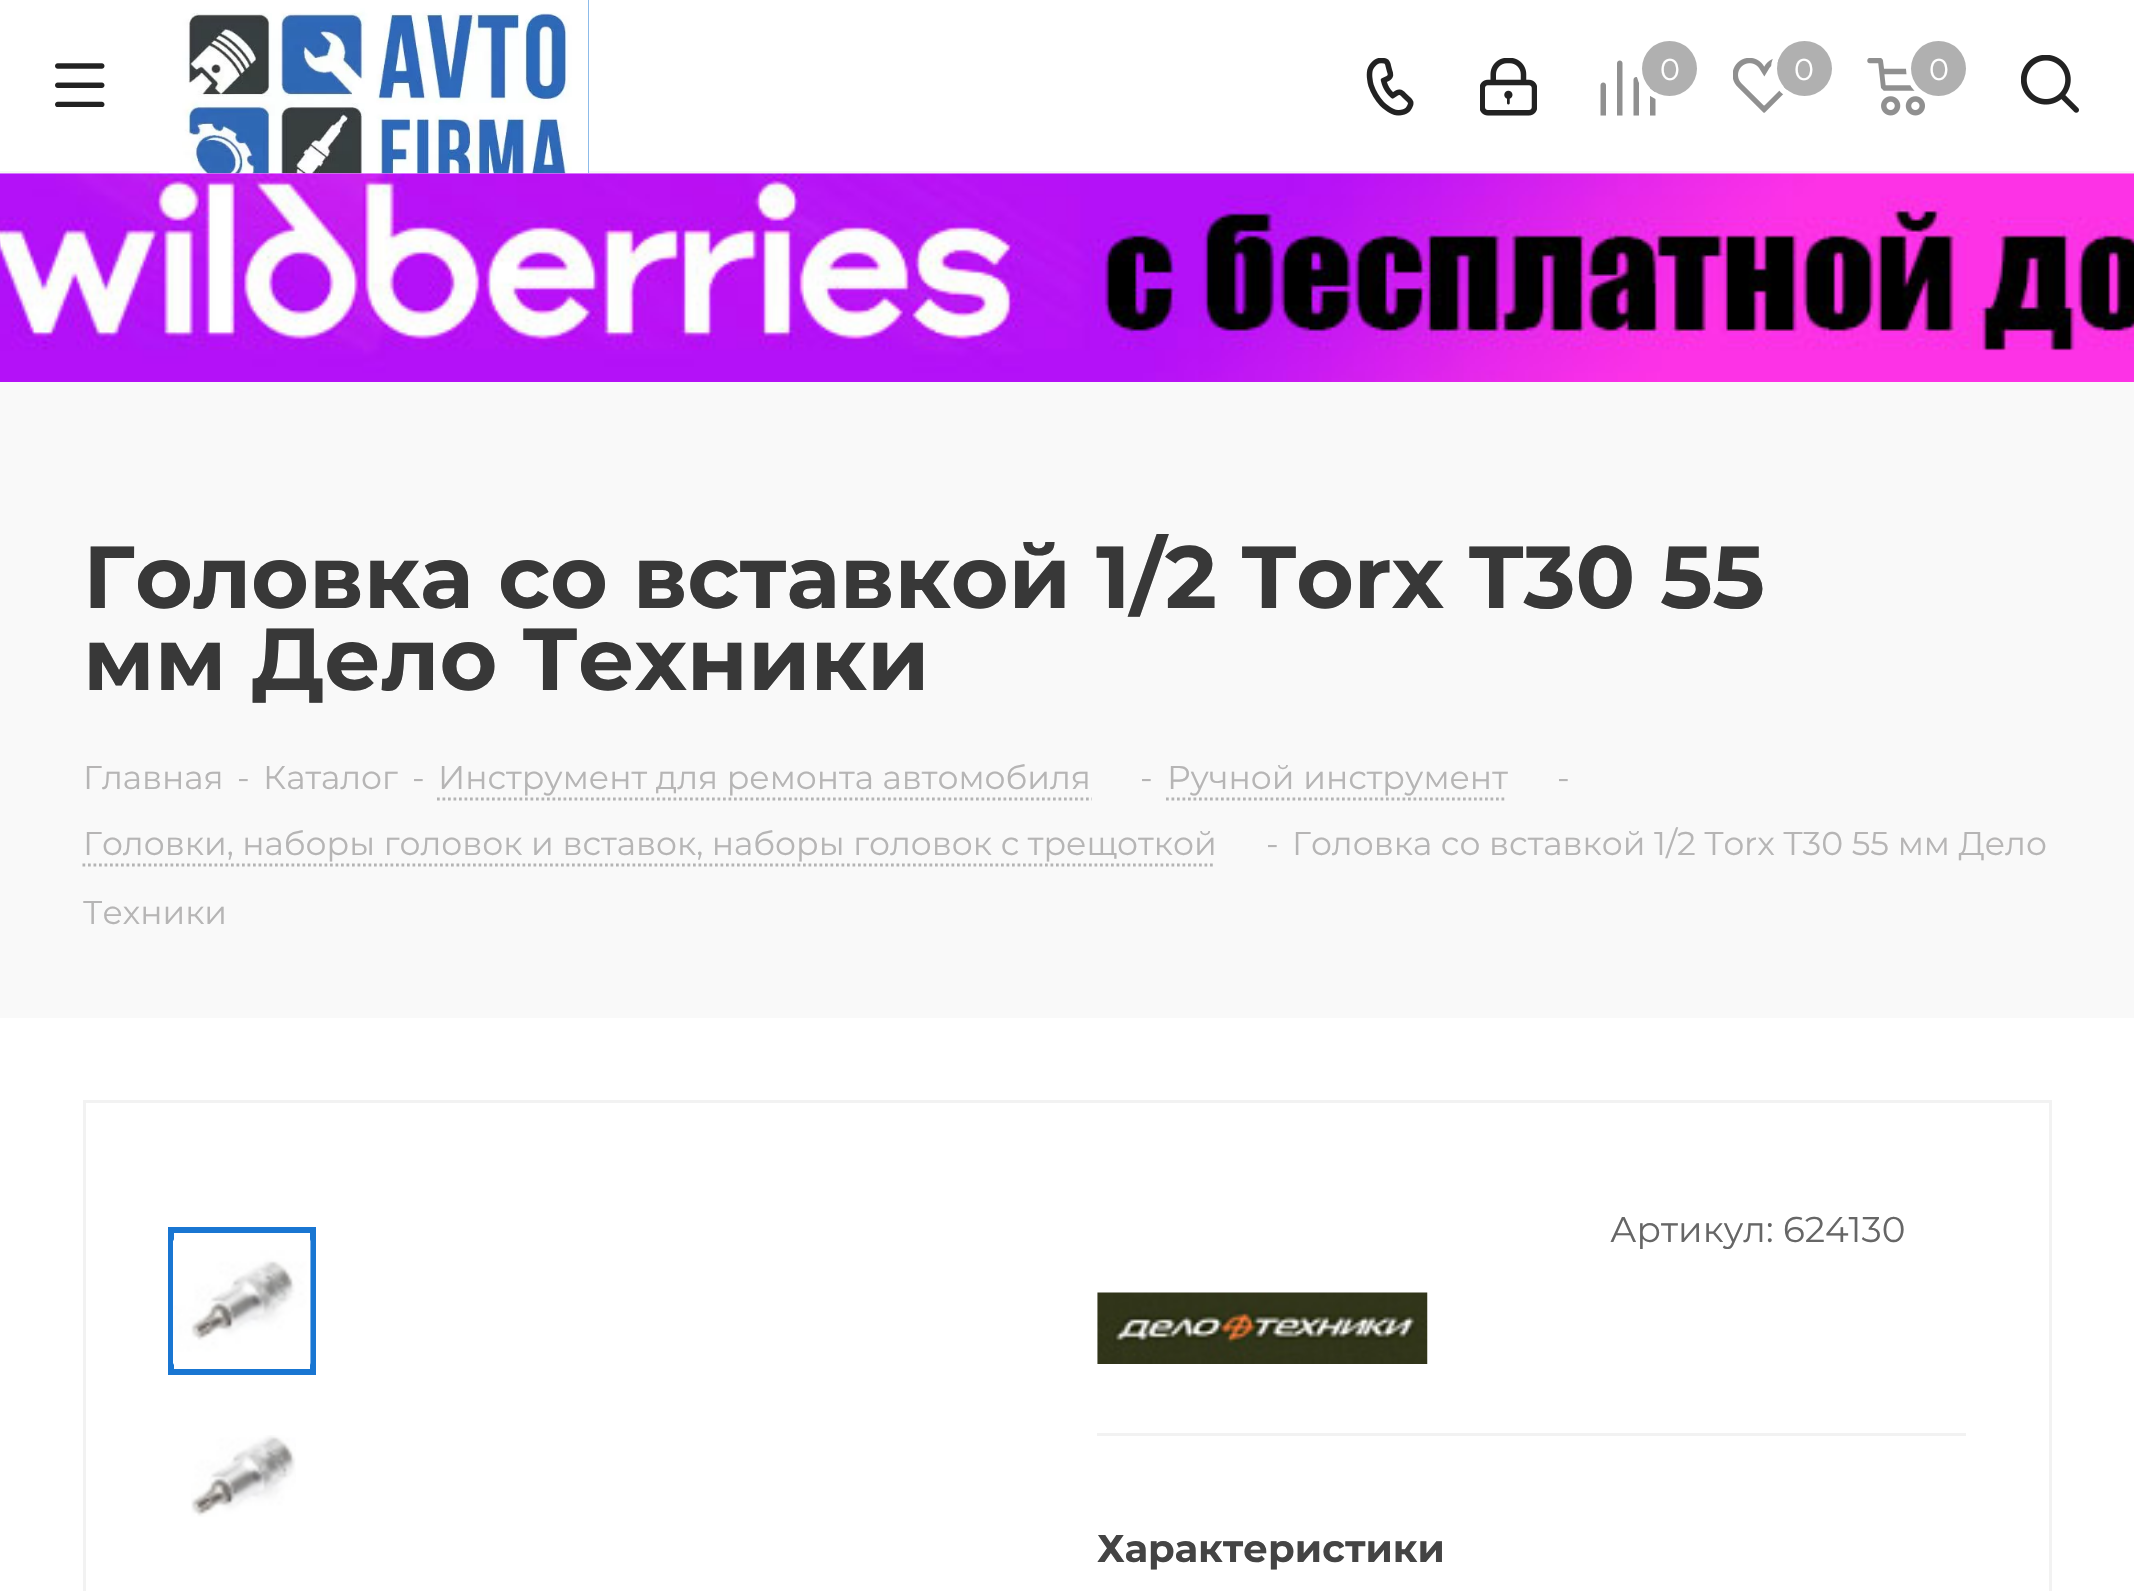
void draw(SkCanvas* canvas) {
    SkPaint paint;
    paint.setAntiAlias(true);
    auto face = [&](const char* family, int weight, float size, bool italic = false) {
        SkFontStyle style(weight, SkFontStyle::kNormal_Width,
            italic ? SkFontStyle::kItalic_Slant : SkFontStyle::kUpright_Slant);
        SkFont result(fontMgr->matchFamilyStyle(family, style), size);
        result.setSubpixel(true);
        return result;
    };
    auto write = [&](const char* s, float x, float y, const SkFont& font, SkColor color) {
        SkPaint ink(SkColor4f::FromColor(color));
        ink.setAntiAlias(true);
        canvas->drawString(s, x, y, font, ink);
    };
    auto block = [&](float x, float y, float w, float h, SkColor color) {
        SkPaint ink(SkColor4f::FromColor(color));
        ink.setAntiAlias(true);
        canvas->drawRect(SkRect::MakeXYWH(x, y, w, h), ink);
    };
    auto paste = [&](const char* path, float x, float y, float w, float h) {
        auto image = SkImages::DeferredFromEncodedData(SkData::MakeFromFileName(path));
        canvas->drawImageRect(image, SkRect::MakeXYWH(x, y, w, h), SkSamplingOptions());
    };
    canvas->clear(SK_ColorWHITE);
    block(0, 171, 2134, 2, SkColorSetRGB(245, 245, 245));
    paste("pic1.png", 55, 63, 50, 44);
    block(588, 0, 1, 173, SkColorSetRGB(25, 118, 210));
    paste("pic2.png", 159, 0, 430, 174);
    paste("pic3.png", 1366, 58, 48, 58);
    paste("pic4.png", 1480, 58, 57, 58);
    paste("pic5.png", 1600, 60, 56, 56);
    paint.setStyle(SkPaint::kStroke_Style);
    paint.setStrokeWidth(6);
    paint.setColor(SK_ColorWHITE);
    canvas->drawCircle(1669, 69, 30, paint);
    paint.setStyle(SkPaint::kFill_Style);
    paint.setColor(SkColorSetRGB(176, 176, 176));
    canvas->drawCircle(1669.5f, 68.5f, 27.5f, paint);
    auto kFont1 = face("Montserrat", 400, 30);
    write("0", 1660, 80, kFont1, SK_ColorWHITE);
    paste("pic6.png", 1733, 58, 55, 55);
    paint.setStyle(SkPaint::kStroke_Style);
    paint.setColor(SK_ColorWHITE);
    canvas->drawCircle(1804, 69, 30, paint);
    paint.setStyle(SkPaint::kFill_Style);
    paint.setColor(SkColorSetRGB(176, 176, 176));
    canvas->drawCircle(1804.5f, 68.5f, 27.5f, paint);
    write("0", 1794, 80, kFont1, SK_ColorWHITE);
    paste("pic7.png", 1867, 58, 58, 58);
    paint.setStyle(SkPaint::kStroke_Style);
    paint.setColor(SK_ColorWHITE);
    canvas->drawCircle(1939, 69, 30, paint);
    paint.setStyle(SkPaint::kFill_Style);
    paint.setColor(SkColorSetRGB(176, 176, 176));
    canvas->drawCircle(1938.5f, 68.5f, 27.5f, paint);
    write("0", 1929, 80, kFont1, SK_ColorWHITE);
    paste("pic8.png", 2021, 55, 58, 58);
    paste("pic9.png", 0, 173, 2134, 209);
    block(0, 382, 2134, 636, SkColorSetRGB(249, 249, 249));
    auto kFont2 = face("Montserrat", 700, 88);
    write("Головка со вставкой 1/2 Torx T30 55", 83, 608, kFont2, SkColorSetRGB(56, 56, 56));
    write("мм Дело Техники", 83, 690, kFont2, SkColorSetRGB(56, 56, 56));
    auto kFont3 = face("Montserrat", 400, 33);
    write("Главная", 83, 789, kFont3, SkColorSetRGB(182, 181, 181));
    write("-", 237, 789, kFont3, SkColorSetRGB(182, 181, 181));
    write("Каталог", 263, 789, kFont3, SkColorSetRGB(182, 181, 181));
    write("-", 412, 789, kFont3, SkColorSetRGB(182, 181, 181));
    write("Инструмент для ремонта автомобиля", 438, 789, kFont3, SkColorSetRGB(182, 181, 181));
    paint.setStyle(SkPaint::kStroke_Style);
    paint.setStrokeWidth(2.8f);
    paint.setColor(SkColorSetRGB(180, 180, 180));
    paint.setPathEffect(SkDashPathEffect::Make({{2.75f, 2.75f}}, 0));
    canvas->drawPath(SkPathBuilder().moveTo(437, 799).lineTo(1092, 799).detach(), paint);
    paint.setPathEffect(nullptr);
    write("-", 1140, 789, kFont3, SkColorSetRGB(182, 181, 181));
    write("Ручной инструмент", 1167, 789, kFont3, SkColorSetRGB(182, 181, 181));
    paint.setPathEffect(SkDashPathEffect::Make({{2.75f, 2.75f}}, 0));
    canvas->drawPath(SkPathBuilder().moveTo(1166, 799).lineTo(1507, 799).detach(), paint);
    paint.setPathEffect(nullptr);
    write("-", 1557, 789, kFont3, SkColorSetRGB(182, 181, 181));
    write("Головки, наборы головок и вставок, наборы головок с трещоткой", 83, 855, kFont3, SkColorSetRGB(182, 181, 181));
    paint.setPathEffect(SkDashPathEffect::Make({{2.75f, 2.75f}}, 0));
    canvas->drawPath(SkPathBuilder().moveTo(82.5f, 865).lineTo(1215.5f, 865).detach(), paint);
    paint.setPathEffect(nullptr);
    write("-", 1266, 855, kFont3, SkColorSetRGB(182, 181, 181));
    write("Головка со вставкой 1/2 Torx T30 55 мм Дело", 1292, 855, kFont3, SkColorSetRGB(182, 181, 181));
    write("Техники", 83, 924, kFont3, SkColorSetRGB(182, 181, 181));
    paint.setStrokeWidth(3);
    paint.setColor(SkColorSetRGB(242, 242, 242));
    canvas->drawRect(SkRect::MakeXYWH(84.5f, 1101.5f, 1966, 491), paint);
    paint.setStrokeWidth(6);
    paint.setColor(SkColorSetRGB(25, 118, 210));
    canvas->drawRect(SkRect::MakeXYWH(171, 1230, 142, 142), paint);
    paste("pic10.png", 173, 1239, 138, 126);
    paste("pic11.png", 191, 1435, 105, 82);
    block(1097, 1433, 869, 3, SkColorSetRGB(242, 242, 242));
    auto kFont4 = face("Montserrat", 400, 35.75f);
    write("Артикул: 624130", 1610, 1242, kFont4, SkColorSetRGB(102, 102, 102));
    paste("pic12.png", 1097, 1292, 331, 72);
    auto kFont5 = face("Montserrat", 700, 38.5f);
    write("Характеристики", 1097, 1562, kFont5, SkColorSetRGB(68, 68, 68));
}
